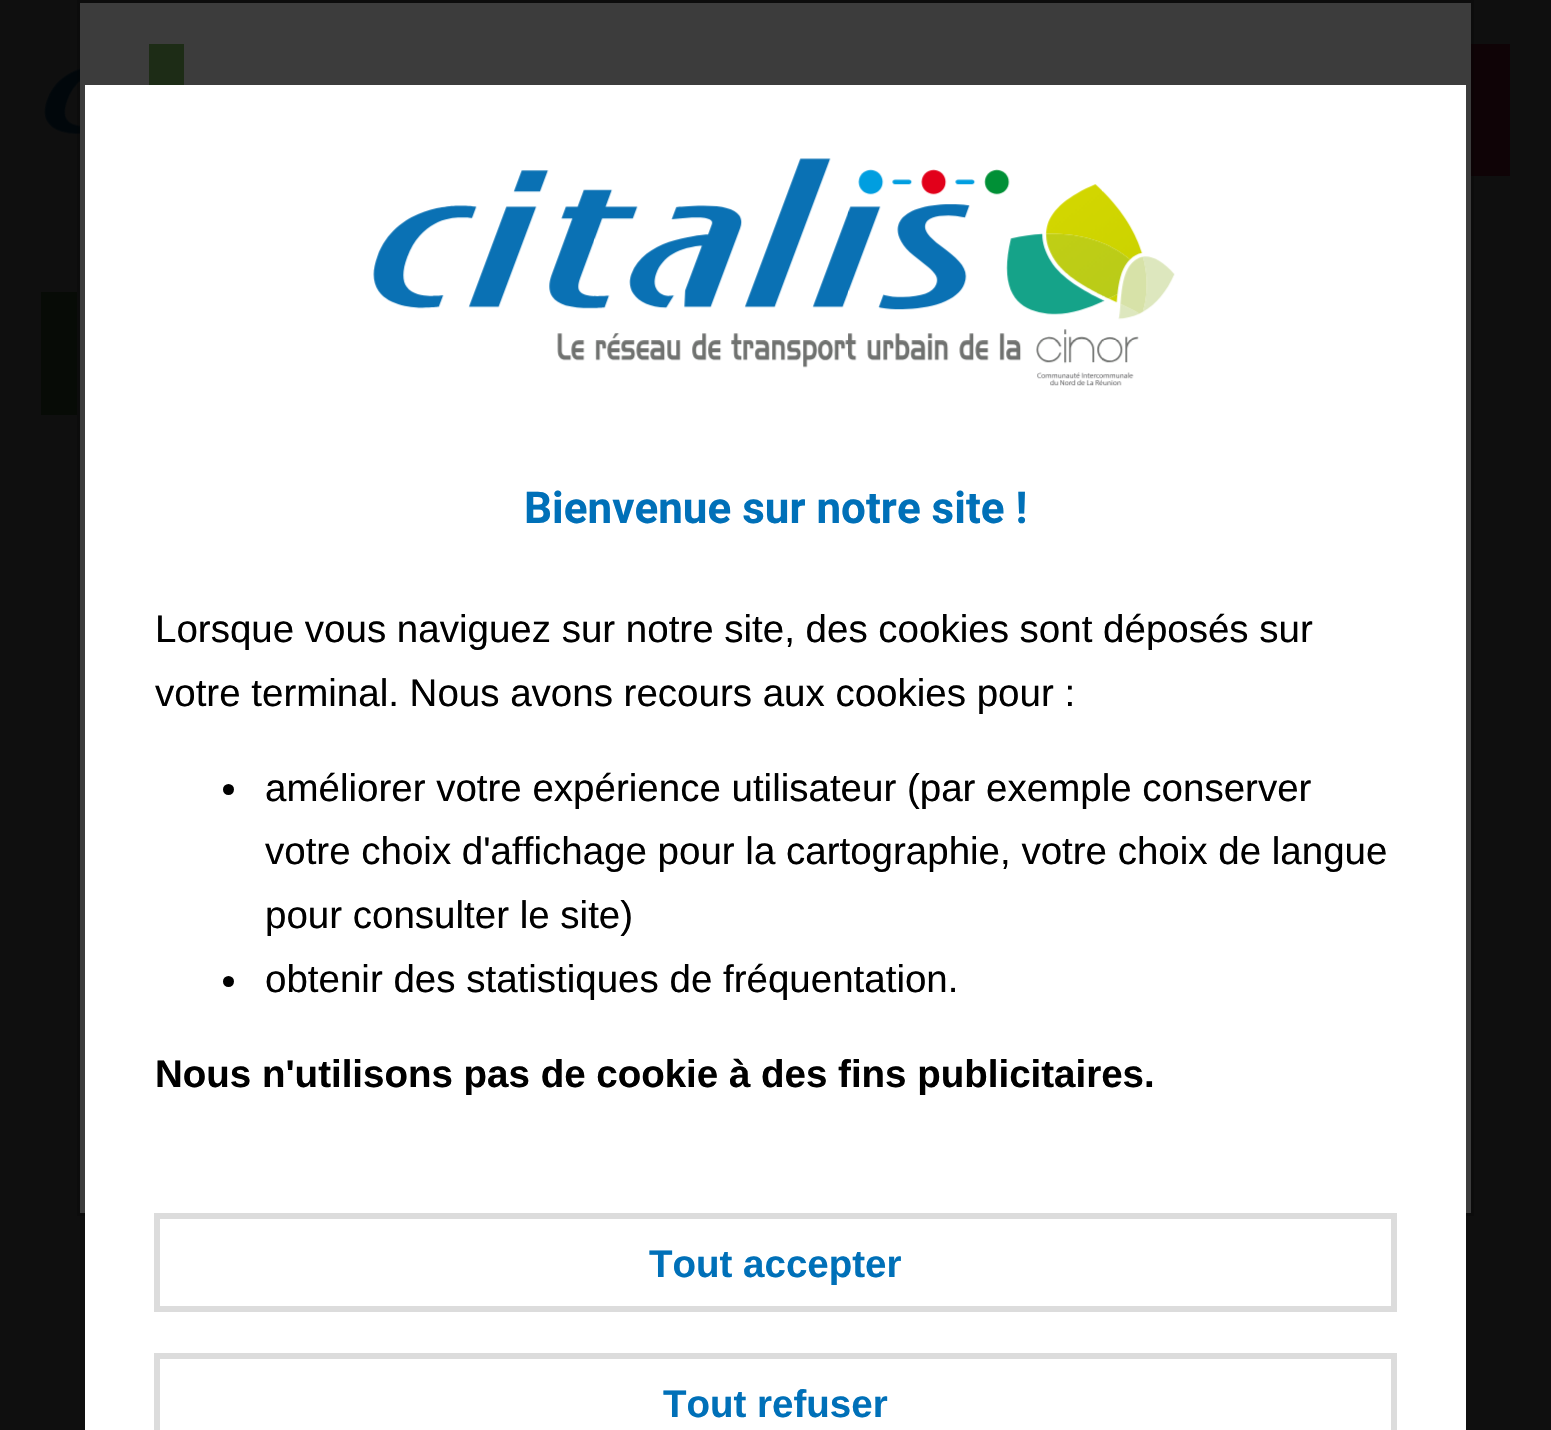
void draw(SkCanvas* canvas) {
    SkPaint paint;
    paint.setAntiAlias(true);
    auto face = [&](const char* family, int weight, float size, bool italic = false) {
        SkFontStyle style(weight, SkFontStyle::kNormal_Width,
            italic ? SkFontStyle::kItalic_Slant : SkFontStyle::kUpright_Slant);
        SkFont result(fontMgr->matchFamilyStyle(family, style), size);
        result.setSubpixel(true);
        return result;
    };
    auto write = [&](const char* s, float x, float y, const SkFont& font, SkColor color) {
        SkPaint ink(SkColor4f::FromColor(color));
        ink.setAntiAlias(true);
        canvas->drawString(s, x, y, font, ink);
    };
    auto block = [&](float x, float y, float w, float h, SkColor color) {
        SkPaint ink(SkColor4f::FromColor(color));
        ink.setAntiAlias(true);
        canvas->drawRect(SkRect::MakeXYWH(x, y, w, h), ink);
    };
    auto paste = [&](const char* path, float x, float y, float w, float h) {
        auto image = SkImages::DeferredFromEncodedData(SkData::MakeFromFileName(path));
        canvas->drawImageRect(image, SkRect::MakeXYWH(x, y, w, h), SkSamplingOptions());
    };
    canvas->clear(SkColorSetRGB(15, 15, 15));
    block(80, 3, 1391, 1210, SkColorSetRGB(60, 60, 60));
    paste("pic1.png", 44, 68, 36, 67);
    block(1471, 44, 39, 132, SkColorSetRGB(15, 3, 6));
    paint.setStyle(SkPaint::kStroke_Style);
    paint.setStrokeWidth(3);
    paint.setColor(SkColorSetARGB(51, 0, 0, 0));
    canvas->drawRect(SkRect::MakeXYWH(78.5f, 1.5f, 1394, 1213), paint);
    block(149, 44, 35, 41, SkColorSetRGB(29, 44, 22));
    block(41, 292, 36, 123, SkColorSetRGB(7, 11, 6));
    block(85, 85, 1381, 1345, SK_ColorWHITE);
    paste("pic2.png", 373, 158, 802, 228);
    auto kFont1 = face("Roboto", 700, 44);
    write("Bienvenue sur notre site !", 524, 523, kFont1, SkColorSetRGB(0, 112, 184));
    auto kFont2 = face("Liberation Sans", 400, 38.5f);
    write("Lorsque vous naviguez sur notre site, des cookies sont déposés sur", 155, 642, kFont2, SK_ColorBLACK);
    write("votre terminal. Nous avons recours aux cookies pour :", 155, 706, kFont2, SK_ColorBLACK);
    paint.setStyle(SkPaint::kFill_Style);
    paint.setColor(SK_ColorBLACK);
    canvas->drawCircle(228.5f, 789.5f, 5.5f, paint);
    write("améliorer votre expérience utilisateur (par exemple conserver", 265, 801, kFont2, SK_ColorBLACK);
    write("votre choix d'affichage pour la cartographie, votre choix de langue", 265, 864, kFont2, SK_ColorBLACK);
    write("pour consulter le site)", 265, 928, kFont2, SK_ColorBLACK);
    canvas->drawCircle(228.5f, 981.5f, 5.5f, paint);
    write("obtenir des statistiques de fréquentation.", 265, 992, kFont2, SK_ColorBLACK);
    auto kFont3 = face("Liberation Sans", 700, 38.5f);
    write("Nous n'utilisons pas de cookie à des fins publicitaires.", 155, 1087, kFont3, SK_ColorBLACK);
    paint.setStyle(SkPaint::kStroke_Style);
    paint.setStrokeWidth(6);
    paint.setColor(SkColorSetRGB(220, 220, 220));
    canvas->drawRect(SkRect::MakeXYWH(157, 1216, 1237, 93), paint);
    write("Tout accepter", 649, 1277, kFont3, SkColorSetRGB(0, 112, 184));
    canvas->drawRect(SkRect::MakeXYWH(157, 1356, 1237, 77), paint);
    write("Tout refuser", 663, 1417, kFont3, SkColorSetRGB(0, 112, 184));
}
